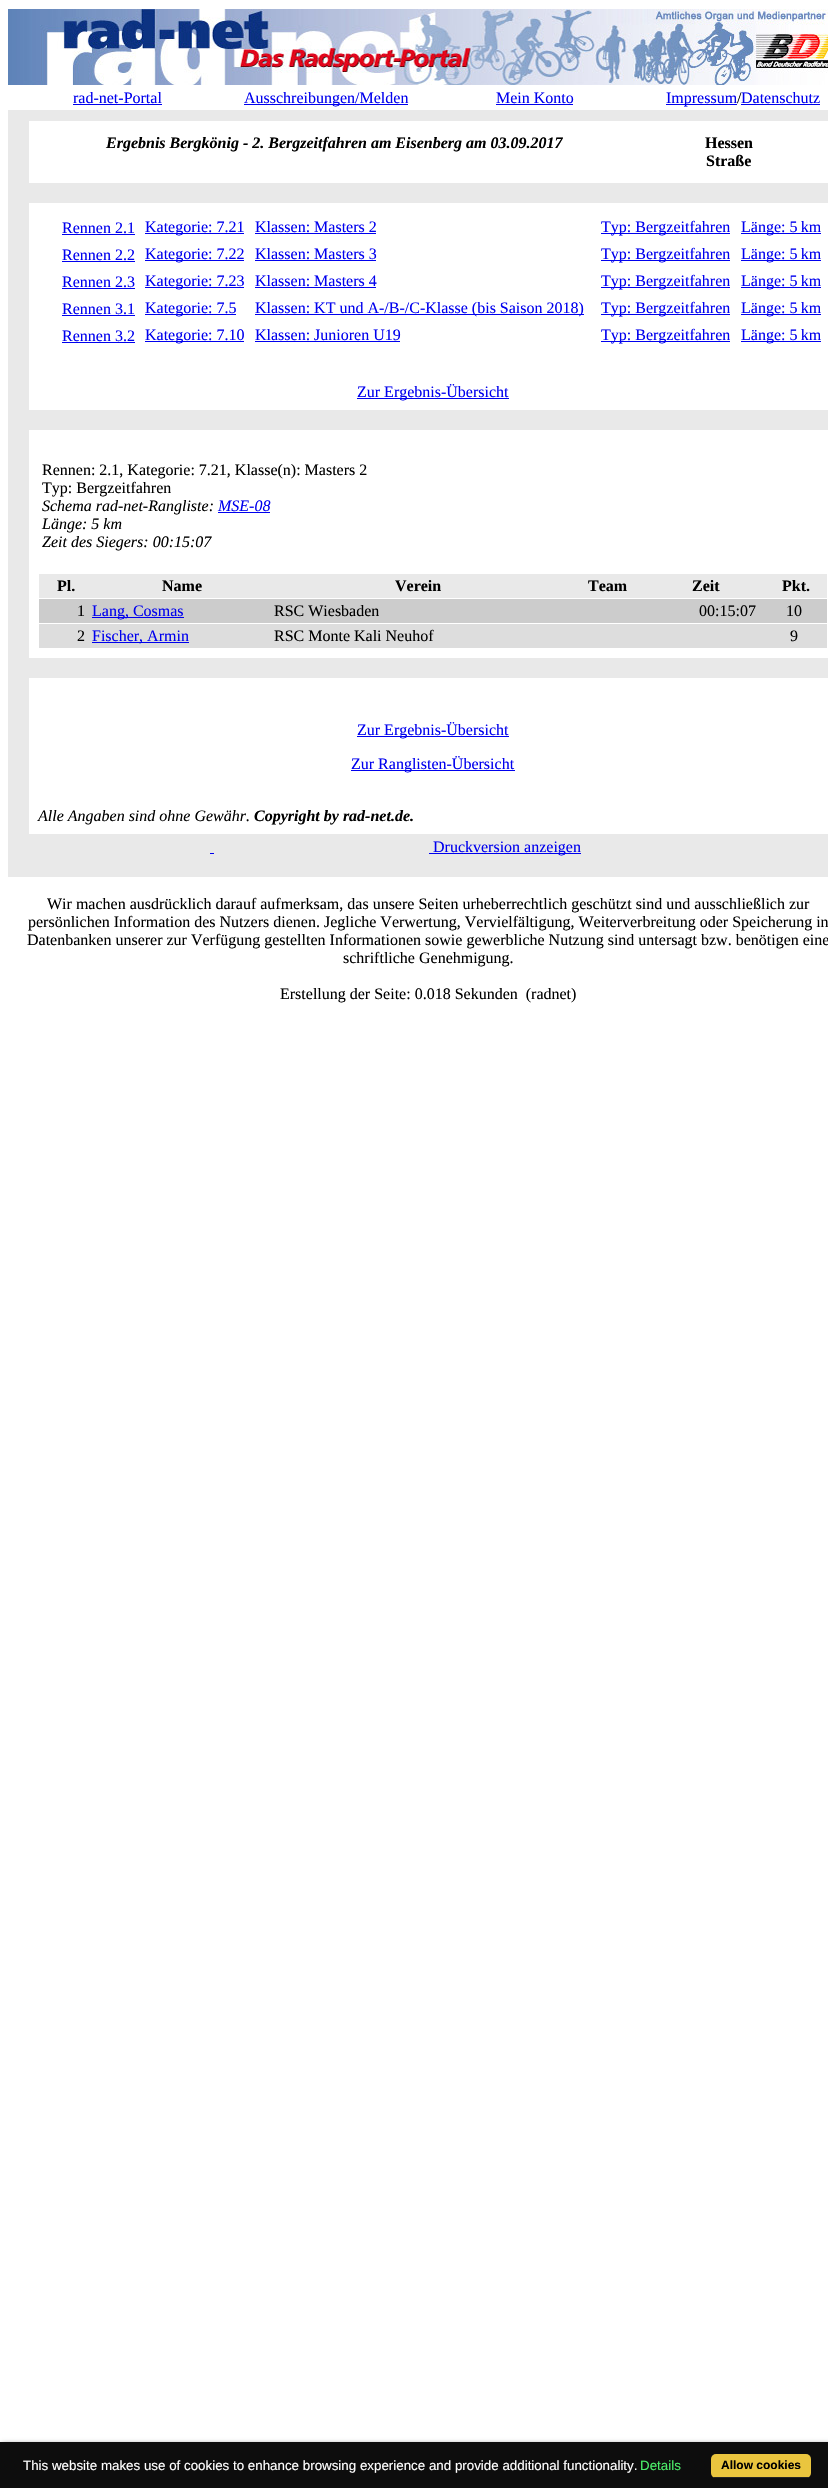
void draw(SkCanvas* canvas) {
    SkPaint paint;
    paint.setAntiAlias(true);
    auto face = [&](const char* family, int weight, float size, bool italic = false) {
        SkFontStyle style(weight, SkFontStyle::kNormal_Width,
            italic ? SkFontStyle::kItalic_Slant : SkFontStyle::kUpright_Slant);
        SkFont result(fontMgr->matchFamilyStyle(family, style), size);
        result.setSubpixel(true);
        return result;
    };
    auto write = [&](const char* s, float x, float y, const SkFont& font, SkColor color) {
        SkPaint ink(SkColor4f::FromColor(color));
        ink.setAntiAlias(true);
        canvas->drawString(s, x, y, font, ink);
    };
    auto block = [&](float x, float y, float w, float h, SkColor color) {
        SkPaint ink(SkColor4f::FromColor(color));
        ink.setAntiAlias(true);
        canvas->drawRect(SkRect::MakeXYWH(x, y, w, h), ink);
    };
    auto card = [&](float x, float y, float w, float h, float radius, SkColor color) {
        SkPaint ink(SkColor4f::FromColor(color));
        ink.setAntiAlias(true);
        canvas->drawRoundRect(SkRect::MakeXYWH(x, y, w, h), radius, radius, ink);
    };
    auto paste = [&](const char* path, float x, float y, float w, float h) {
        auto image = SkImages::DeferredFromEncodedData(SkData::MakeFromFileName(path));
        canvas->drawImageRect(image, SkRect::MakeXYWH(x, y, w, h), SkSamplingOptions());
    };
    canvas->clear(SK_ColorWHITE);
    paste("pic1.png", 8, 9, 820, 76);
    auto kFont1 = face("Liberation Serif", 400, 16);
    write("rad-net-Portal", 73, 103, kFont1, SkColorSetRGB(0, 0, 238));
    block(73, 104, 89, 1, SkColorSetRGB(0, 0, 238));
    block(244, 104, 164, 1, SkColorSetRGB(0, 0, 238));
    write("Ausschreibungen/Melden", 244, 103, kFont1, SkColorSetRGB(0, 0, 238));
    write("Mein Konto", 496, 103, kFont1, SkColorSetRGB(0, 0, 238));
    block(496, 104, 77, 1, SkColorSetRGB(0, 0, 238));
    block(666, 104, 71, 1, SkColorSetRGB(0, 0, 238));
    write("Impressum", 666, 103, kFont1, SkColorSetRGB(0, 0, 238));
    write("/", 737, 103, kFont1, SK_ColorBLACK);
    write("Datenschutz", 741, 103, kFont1, SkColorSetRGB(0, 0, 238));
    block(741, 104, 79, 1, SkColorSetRGB(0, 0, 238));
    block(8, 110, 820, 767, SkColorSetRGB(233, 233, 233));
    block(29, 121, 799, 62, SK_ColorWHITE);
    auto kFont2 = face("Liberation Serif", 700, 16, true);
    write("Ergebnis Bergkönig - 2. Bergzeitfahren am Eisenberg am 03.09.2017", 106, 148, kFont2, SK_ColorBLACK);
    auto kFont3 = face("Liberation Serif", 700, 16);
    write("Hessen", 705, 148, kFont3, SK_ColorBLACK);
    write("Straße", 706, 166, kFont3, SK_ColorBLACK);
    block(29, 203, 799, 207, SK_ColorWHITE);
    write("Rennen 2.1", 62, 233, kFont1, SkColorSetRGB(0, 0, 238));
    block(62, 234, 73, 1, SkColorSetRGB(0, 0, 238));
    block(145, 233, 99, 1, SkColorSetRGB(0, 0, 238));
    write("Kategorie: 7.21", 145, 232, kFont1, SkColorSetRGB(0, 0, 238));
    write("Klassen: Masters 2", 255, 232, kFont1, SkColorSetRGB(0, 0, 238));
    block(255, 233, 121, 1, SkColorSetRGB(0, 0, 238));
    block(601, 233, 129, 1, SkColorSetRGB(0, 0, 238));
    write("Typ: Bergzeitfahren", 601, 232, kFont1, SkColorSetRGB(0, 0, 238));
    block(741, 233, 80, 1, SkColorSetRGB(0, 0, 238));
    write("Länge: 5 km", 741, 232, kFont1, SkColorSetRGB(0, 0, 238));
    write("Rennen 2.2", 62, 260, kFont1, SkColorSetRGB(0, 0, 238));
    block(62, 261, 73, 1, SkColorSetRGB(0, 0, 238));
    block(145, 260, 99, 1, SkColorSetRGB(0, 0, 238));
    write("Kategorie: 7.22", 145, 259, kFont1, SkColorSetRGB(0, 0, 238));
    write("Klassen: Masters 3", 255, 259, kFont1, SkColorSetRGB(0, 0, 238));
    block(255, 260, 121, 1, SkColorSetRGB(0, 0, 238));
    block(601, 260, 129, 1, SkColorSetRGB(0, 0, 238));
    write("Typ: Bergzeitfahren", 601, 259, kFont1, SkColorSetRGB(0, 0, 238));
    block(741, 260, 80, 1, SkColorSetRGB(0, 0, 238));
    write("Länge: 5 km", 741, 259, kFont1, SkColorSetRGB(0, 0, 238));
    write("Rennen 2.3", 62, 287, kFont1, SkColorSetRGB(0, 0, 238));
    block(62, 288, 73, 1, SkColorSetRGB(0, 0, 238));
    block(145, 287, 99, 1, SkColorSetRGB(0, 0, 238));
    write("Kategorie: 7.23", 145, 286, kFont1, SkColorSetRGB(0, 0, 238));
    write("Klassen: Masters 4", 255, 286, kFont1, SkColorSetRGB(0, 0, 238));
    block(255, 287, 121, 1, SkColorSetRGB(0, 0, 238));
    block(601, 287, 129, 1, SkColorSetRGB(0, 0, 238));
    write("Typ: Bergzeitfahren", 601, 286, kFont1, SkColorSetRGB(0, 0, 238));
    block(741, 287, 80, 1, SkColorSetRGB(0, 0, 238));
    write("Länge: 5 km", 741, 286, kFont1, SkColorSetRGB(0, 0, 238));
    write("Rennen 3.1", 62, 314, kFont1, SkColorSetRGB(0, 0, 238));
    block(62, 315, 73, 1, SkColorSetRGB(0, 0, 238));
    block(145, 314, 91, 1, SkColorSetRGB(0, 0, 238));
    write("Kategorie: 7.5", 145, 313, kFont1, SkColorSetRGB(0, 0, 238));
    block(255, 314, 329, 1, SkColorSetRGB(0, 0, 238));
    write("Klassen: KT und A-/B-/C-Klasse (bis Saison 2018)", 255, 313, kFont1, SkColorSetRGB(0, 0, 238));
    block(601, 314, 129, 1, SkColorSetRGB(0, 0, 238));
    write("Typ: Bergzeitfahren", 601, 313, kFont1, SkColorSetRGB(0, 0, 238));
    block(741, 314, 80, 1, SkColorSetRGB(0, 0, 238));
    write("Länge: 5 km", 741, 313, kFont1, SkColorSetRGB(0, 0, 238));
    write("Rennen 3.2", 62, 341, kFont1, SkColorSetRGB(0, 0, 238));
    block(62, 342, 73, 1, SkColorSetRGB(0, 0, 238));
    block(145, 341, 99, 1, SkColorSetRGB(0, 0, 238));
    write("Kategorie: 7.10", 145, 340, kFont1, SkColorSetRGB(0, 0, 238));
    write("Klassen: Junioren U19", 255, 340, kFont1, SkColorSetRGB(0, 0, 238));
    block(255, 341, 145, 1, SkColorSetRGB(0, 0, 238));
    block(601, 341, 129, 1, SkColorSetRGB(0, 0, 238));
    write("Typ: Bergzeitfahren", 601, 340, kFont1, SkColorSetRGB(0, 0, 238));
    block(741, 341, 80, 1, SkColorSetRGB(0, 0, 238));
    write("Länge: 5 km", 741, 340, kFont1, SkColorSetRGB(0, 0, 238));
    block(357, 398, 152, 1, SkColorSetRGB(0, 0, 238));
    write("Zur Ergebnis-Übersicht", 357, 397, kFont1, SkColorSetRGB(0, 0, 238));
    block(29, 430, 799, 228, SK_ColorWHITE);
    write("Rennen: 2.1, Kategorie: 7.21, Klasse(n): Masters 2", 42, 475, kFont1, SK_ColorBLACK);
    write("Typ: Bergzeitfahren", 42, 493, kFont1, SK_ColorBLACK);
    auto kFont4 = face("Liberation Serif", 400, 16, true);
    write("Schema rad-net-Rangliste:", 42, 511, kFont4, SK_ColorBLACK);
    write("MSE-08", 218, 511, kFont4, SkColorSetRGB(0, 0, 238));
    block(218, 512, 52, 1, SkColorSetRGB(0, 0, 238));
    write("Länge: 5 km", 42, 529, kFont4, SK_ColorBLACK);
    write("Zeit des Siegers: 00:15:07", 42, 547, kFont4, SK_ColorBLACK);
    block(39, 574, 788, 24, SkColorSetRGB(233, 233, 233));
    write("Pl.", 57, 591, kFont3, SK_ColorBLACK);
    write("Name", 162, 591, kFont3, SK_ColorBLACK);
    write("Verein", 395, 591, kFont3, SK_ColorBLACK);
    write("Team", 588, 591, kFont3, SK_ColorBLACK);
    write("Zeit", 692, 591, kFont3, SK_ColorBLACK);
    write("Pkt.", 782, 591, kFont3, SK_ColorBLACK);
    block(39, 599, 788, 24, SkColorSetRGB(204, 204, 204));
    write("1", 77, 616, kFont1, SK_ColorBLACK);
    block(92, 617, 92, 1, SkColorSetRGB(0, 0, 238));
    write("Lang, Cosmas", 92, 616, kFont1, SkColorSetRGB(0, 0, 238));
    write("RSC Wiesbaden", 274, 616, kFont1, SK_ColorBLACK);
    write("00:15:07", 699, 616, kFont1, SK_ColorBLACK);
    write("10", 786, 616, kFont1, SK_ColorBLACK);
    block(39, 624, 788, 24, SkColorSetRGB(221, 221, 221));
    write("2", 77, 641, kFont1, SK_ColorBLACK);
    block(92, 642, 97, 1, SkColorSetRGB(0, 0, 238));
    write("Fischer, Armin", 92, 641, kFont1, SkColorSetRGB(0, 0, 238));
    write("RSC Monte Kali Neuhof", 274, 641, kFont1, SK_ColorBLACK);
    write("9", 790, 641, kFont1, SK_ColorBLACK);
    block(29, 678, 799, 156, SK_ColorWHITE);
    block(357, 736, 152, 1, SkColorSetRGB(0, 0, 238));
    write("Zur Ergebnis-Übersicht", 357, 735, kFont1, SkColorSetRGB(0, 0, 238));
    block(351, 770, 164, 1, SkColorSetRGB(0, 0, 238));
    write("Zur Ranglisten-Übersicht", 351, 769, kFont1, SkColorSetRGB(0, 0, 238));
    write("Alle Angaben sind ohne Gewähr.", 38, 821, kFont4, SK_ColorBLACK);
    write("Copyright by rad-net.de.", 254, 821, kFont2, SK_ColorBLACK);
    block(210, 853, 4, 1, SkColorSetRGB(0, 0, 238));
    block(429, 853, 152, 1, SkColorSetRGB(0, 0, 238));
    write("Druckversion anzeigen", 433, 852, kFont1, SkColorSetRGB(0, 0, 238));
    write("Wir machen ausdrücklich darauf aufmerksam, das unsere Seiten urheberrechtlich geschützt sind und ausschließlich zur", 47, 909, kFont1, SK_ColorBLACK);
    write("persönlichen Information des Nutzers dienen. Jegliche Verwertung, Vervielfältigung, Weiterverbreitung oder Speicherung in", 28, 927, kFont1, SK_ColorBLACK);
    write("Datenbanken unserer zur Verfügung gestellten Informationen sowie gewerbliche Nutzung sind untersagt bzw. benötigen eine", 27, 945, kFont1, SK_ColorBLACK);
    write("schriftliche Genehmigung.", 343, 963, kFont1, SK_ColorBLACK);
    write("Erstellung der Seite: 0.018 Sekunden  (radnet)", 280, 999, kFont1, SK_ColorBLACK);
    paint.setColor(SkColorSetARGB(153, 0, 0, 0));
    paint.setMaskFilter(SkMaskFilter::MakeBlur(kNormal_SkBlurStyle, 2.5f));
    canvas->drawRect(SkRect::MakeXYWH(2, 2444, 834, 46), paint);
    paint.setMaskFilter(nullptr);
    block(0, 2442, 828, 46, SkColorSetRGB(13, 13, 13));
    auto kFont5 = face("Liberation Sans", 400, 13.35f);
    write("This website makes use of cookies to enhance browsing experience and provide additional functionality.", 23, 2470, kFont5, SK_ColorWHITE);
    write("Details", 640, 2470, kFont5, SkColorSetRGB(75, 236, 105));
    card(711, 2454, 100, 24, 5, SkColorSetRGB(234, 197, 62));
    block(714, 2477, 95, 1, SkColorSetRGB(34, 34, 34));
    auto kFont6 = face("Liberation Sans", 700, 12);
    write("Allow cookies", 721, 2469, kFont6, SK_ColorBLACK);
}
